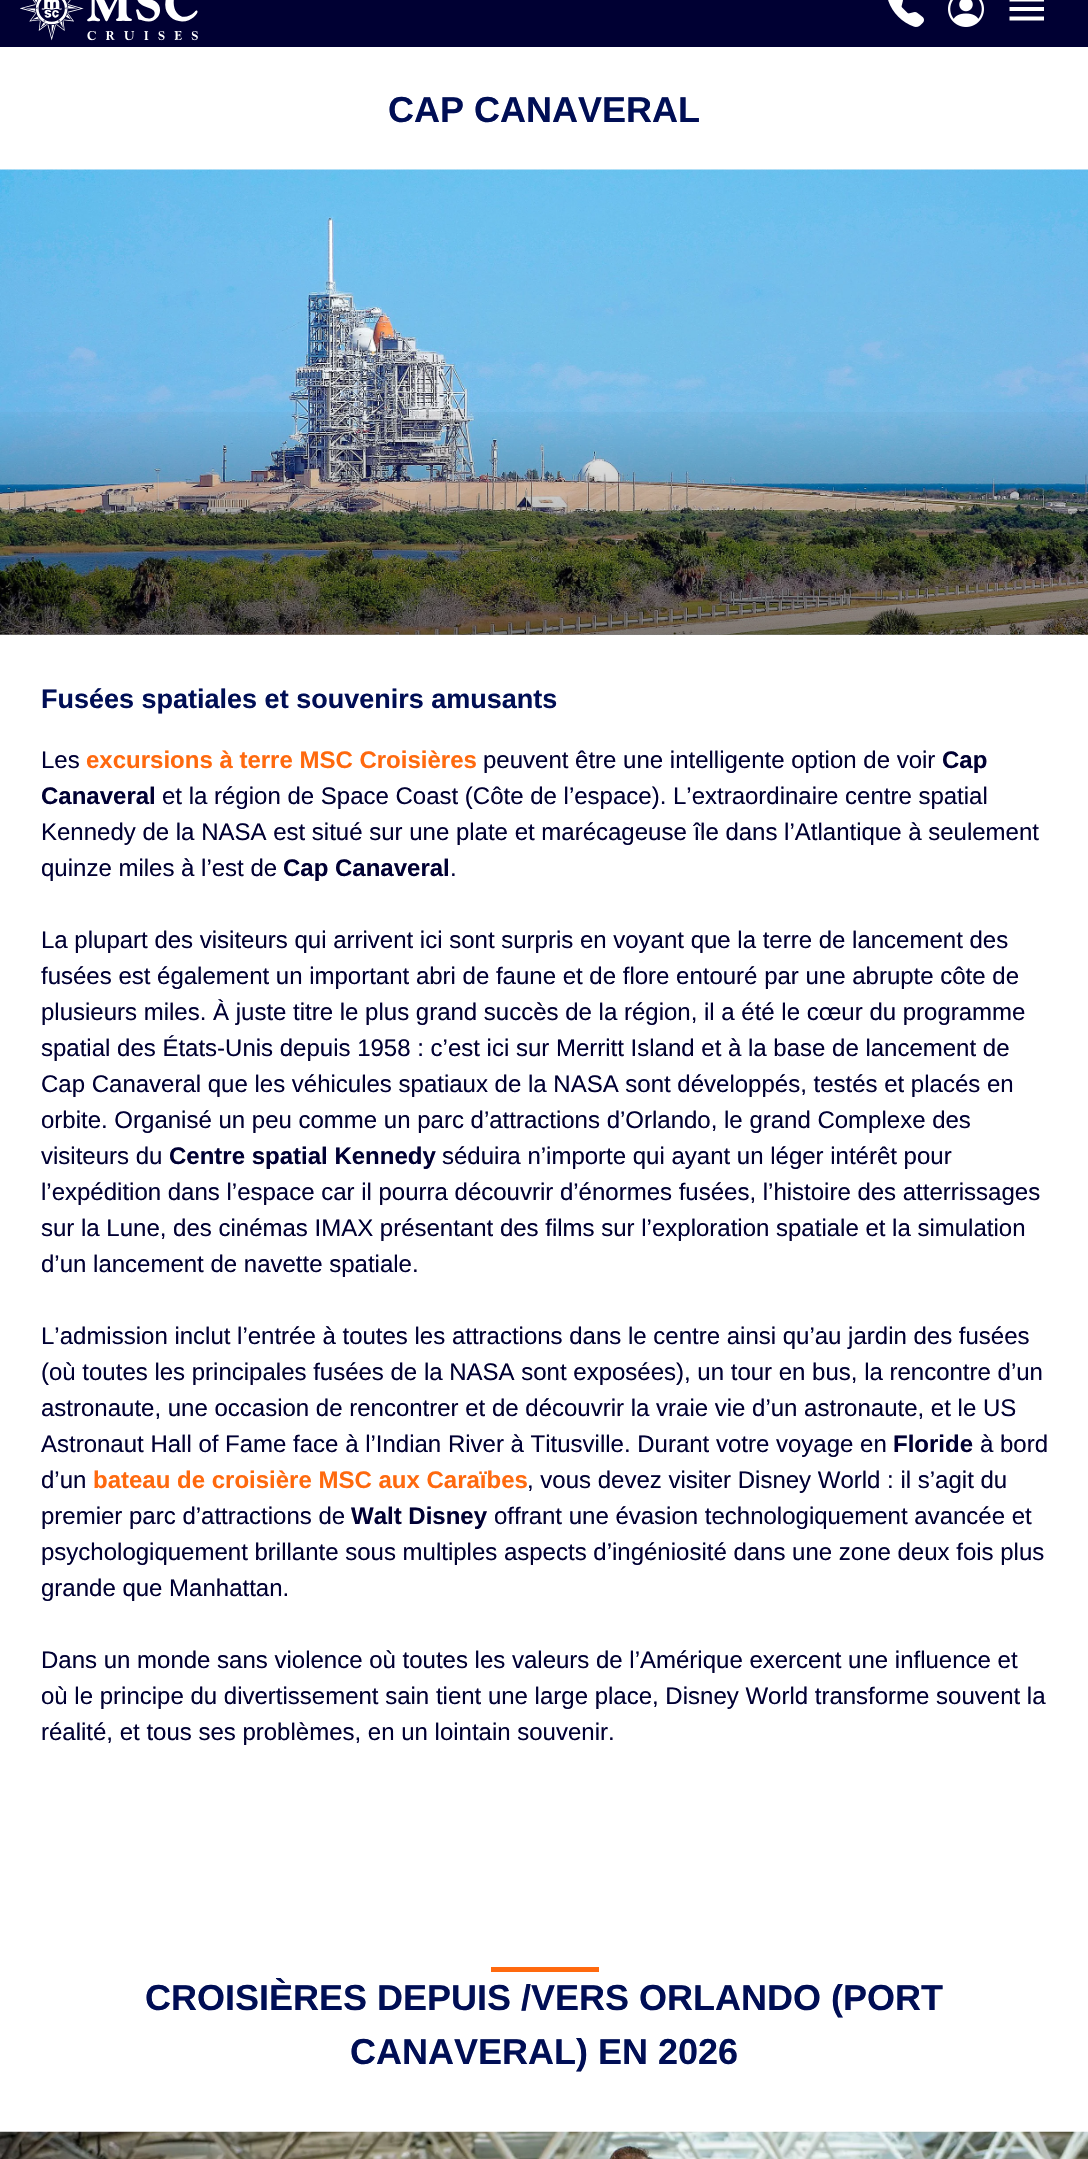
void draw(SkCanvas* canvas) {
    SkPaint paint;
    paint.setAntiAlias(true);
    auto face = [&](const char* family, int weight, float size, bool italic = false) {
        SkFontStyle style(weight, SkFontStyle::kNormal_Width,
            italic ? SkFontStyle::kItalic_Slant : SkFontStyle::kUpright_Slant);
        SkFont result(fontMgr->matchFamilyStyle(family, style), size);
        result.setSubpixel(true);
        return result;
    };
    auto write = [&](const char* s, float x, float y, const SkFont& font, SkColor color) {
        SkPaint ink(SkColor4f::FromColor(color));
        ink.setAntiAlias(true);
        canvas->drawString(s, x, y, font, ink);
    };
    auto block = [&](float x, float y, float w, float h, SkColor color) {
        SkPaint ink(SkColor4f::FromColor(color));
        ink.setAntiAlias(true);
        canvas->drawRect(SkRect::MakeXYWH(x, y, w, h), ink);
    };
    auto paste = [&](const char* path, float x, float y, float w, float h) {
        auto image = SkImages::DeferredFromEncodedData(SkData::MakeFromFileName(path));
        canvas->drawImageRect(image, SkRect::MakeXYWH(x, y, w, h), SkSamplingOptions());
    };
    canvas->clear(SK_ColorWHITE);
    block(0, 0, 1088, 47, SkColorSetRGB(0, 0, 51));
    paste("pic1.png", 20, 0, 178, 41);
    paste("pic2.png", 888, 0, 36, 27);
    paste("pic3.png", 948, 0, 36, 27);
    paint.setColor(SK_ColorWHITE);
    canvas->drawPath(SkPathBuilder().moveTo(1009.5f, 20.5f).lineTo(1044, 20.5f).lineTo(1044, 16.5f).lineTo(1009.5f, 16.5f).close().moveTo(1009.5f, 11).lineTo(1044, 11).lineTo(1044, 7).lineTo(1009.5f, 7).close().moveTo(1009.5f, -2.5f).lineTo(1009.5f, 1.5f).lineTo(1044, 1.5f).lineTo(1044, -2.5f).close().detach(), paint);
    auto kFont1 = face("Liberation Sans", 700, 36);
    write("CAP CANAVERAL", 388, 122, kFont1, SkColorSetRGB(0, 14, 85));
    paste("pic4.png", 0, 169, 1088, 466);
    {
        const SkColor colors[] = {SkColorSetARGB(0, 0, 0, 0), SkColorSetARGB(128, 0, 0, 0)};
        const float stops[] = {0.5f, 1};
        const SkPoint ends[] = {{545, 169}, {545, 635}};
        paint.setShader(SkGradientShader::MakeLinear(ends, colors, stops, 2, SkTileMode::kClamp));
        paint.setAlpha(255);
    }
    canvas->drawRect(SkRect::MakeXYWH(0, 412, 1088, 223), paint);
    auto kFont2 = face("Liberation Sans", 700, 27);
    write("Fusées spatiales et souvenirs amusants", 41, 708, kFont2, SkColorSetRGB(0, 14, 85));
    auto kFont3 = face("Liberation Sans", 400, 24);
    write("Les", 41, 768, kFont3, SkColorSetRGB(0, 0, 51));
    auto kFont4 = face("Liberation Sans", 700, 24);
    write("excursions à terre MSC Croisières", 86, 768, kFont4, SkColorSetRGB(255, 105, 14));
    write("peuvent être une intelligente option de voir", 483, 768, kFont3, SkColorSetRGB(0, 0, 51));
    write("Cap", 942, 768, kFont4, SkColorSetRGB(0, 0, 51));
    write("Canaveral", 41, 804, kFont4, SkColorSetRGB(0, 0, 51));
    write("et la région de Space Coast (Côte de l’espace). L’extraordinaire centre spatial", 162, 804, kFont3, SkColorSetRGB(0, 0, 51));
    write("Kennedy de la NASA est situé sur une plate et marécageuse île dans l’Atlantique à seulement", 41, 840, kFont3, SkColorSetRGB(0, 0, 51));
    write("quinze miles à l’est de", 41, 876, kFont3, SkColorSetRGB(0, 0, 51));
    write("Cap Canaveral", 283, 876, kFont4, SkColorSetRGB(0, 0, 51));
    write(".", 450, 876, kFont3, SkColorSetRGB(0, 0, 51));
    write("La plupart des visiteurs qui arrivent ici sont surpris en voyant que la terre de lancement des", 41, 948, kFont3, SkColorSetRGB(0, 0, 51));
    write("fusées est également un important abri de faune et de flore entouré par une abrupte côte de", 41, 984, kFont3, SkColorSetRGB(0, 0, 51));
    write("plusieurs miles. À juste titre le plus grand succès de la région, il a été le cœur du programme", 41, 1020, kFont3, SkColorSetRGB(0, 0, 51));
    write("spatial des États-Unis depuis 1958 : c’est ici sur Merritt Island et à la base de lancement de", 41, 1056, kFont3, SkColorSetRGB(0, 0, 51));
    write("Cap Canaveral que les véhicules spatiaux de la NASA sont développés, testés et placés en", 41, 1092, kFont3, SkColorSetRGB(0, 0, 51));
    write("orbite. Organisé un peu comme un parc d’attractions d’Orlando, le grand Complexe des", 41, 1128, kFont3, SkColorSetRGB(0, 0, 51));
    write("visiteurs du", 41, 1164, kFont3, SkColorSetRGB(0, 0, 51));
    write("Centre spatial Kennedy", 169, 1164, kFont4, SkColorSetRGB(0, 0, 51));
    write("séduira n’importe qui ayant un léger intérêt pour", 442, 1164, kFont3, SkColorSetRGB(0, 0, 51));
    write("l’expédition dans l’espace car il pourra découvrir d’énormes fusées, l’histoire des atterrissages", 41, 1200, kFont3, SkColorSetRGB(0, 0, 51));
    write("sur la Lune, des cinémas IMAX présentant des films sur l’exploration spatiale et la simulation", 41, 1236, kFont3, SkColorSetRGB(0, 0, 51));
    write("d’un lancement de navette spatiale.", 41, 1272, kFont3, SkColorSetRGB(0, 0, 51));
    write("L’admission inclut l’entrée à toutes les attractions dans le centre ainsi qu’au jardin des fusées", 41, 1344, kFont3, SkColorSetRGB(0, 0, 51));
    write("(où toutes les principales fusées de la NASA sont exposées), un tour en bus, la rencontre d’un", 41, 1380, kFont3, SkColorSetRGB(0, 0, 51));
    write("astronaute, une occasion de rencontrer et de découvrir la vraie vie d’un astronaute, et le US", 41, 1416, kFont3, SkColorSetRGB(0, 0, 51));
    write("Astronaut Hall of Fame face à l’Indian River à Titusville. Durant votre voyage en", 41, 1452, kFont3, SkColorSetRGB(0, 0, 51));
    write("Floride", 893, 1452, kFont4, SkColorSetRGB(0, 0, 51));
    write("à bord", 980, 1452, kFont3, SkColorSetRGB(0, 0, 51));
    write("d’un", 41, 1488, kFont3, SkColorSetRGB(0, 0, 51));
    write("bateau de croisière MSC aux Caraïbes", 93, 1488, kFont4, SkColorSetRGB(255, 105, 14));
    write(", vous devez visiter Disney World : il s’agit du", 527, 1488, kFont3, SkColorSetRGB(0, 0, 51));
    write("premier parc d’attractions de", 41, 1524, kFont3, SkColorSetRGB(0, 0, 51));
    write("Walt Disney", 351, 1524, kFont4, SkColorSetRGB(0, 0, 51));
    write("offrant une évasion technologiquement avancée et", 494, 1524, kFont3, SkColorSetRGB(0, 0, 51));
    write("psychologiquement brillante sous multiples aspects d’ingéniosité dans une zone deux fois plus", 41, 1560, kFont3, SkColorSetRGB(0, 0, 51));
    write("grande que Manhattan.", 41, 1596, kFont3, SkColorSetRGB(0, 0, 51));
    write("Dans un monde sans violence où toutes les valeurs de l’Amérique exercent une influence et", 41, 1668, kFont3, SkColorSetRGB(0, 0, 51));
    write("où le principe du divertissement sain tient une large place, Disney World transforme souvent la", 41, 1704, kFont3, SkColorSetRGB(0, 0, 51));
    write("réalité, et tous ses problèmes, en un lointain souvenir.", 41, 1740, kFont3, SkColorSetRGB(0, 0, 51));
    block(491, 1967, 108, 5, SkColorSetRGB(255, 105, 14));
    write("CROISIÈRES DEPUIS /VERS ORLANDO (PORT", 145, 2010, kFont1, SkColorSetRGB(0, 14, 85));
    write("CANAVERAL) EN 2026", 350, 2064, kFont1, SkColorSetRGB(0, 14, 85));
    paste("pic5.png", 0, 2131, 1088, 28);
}
